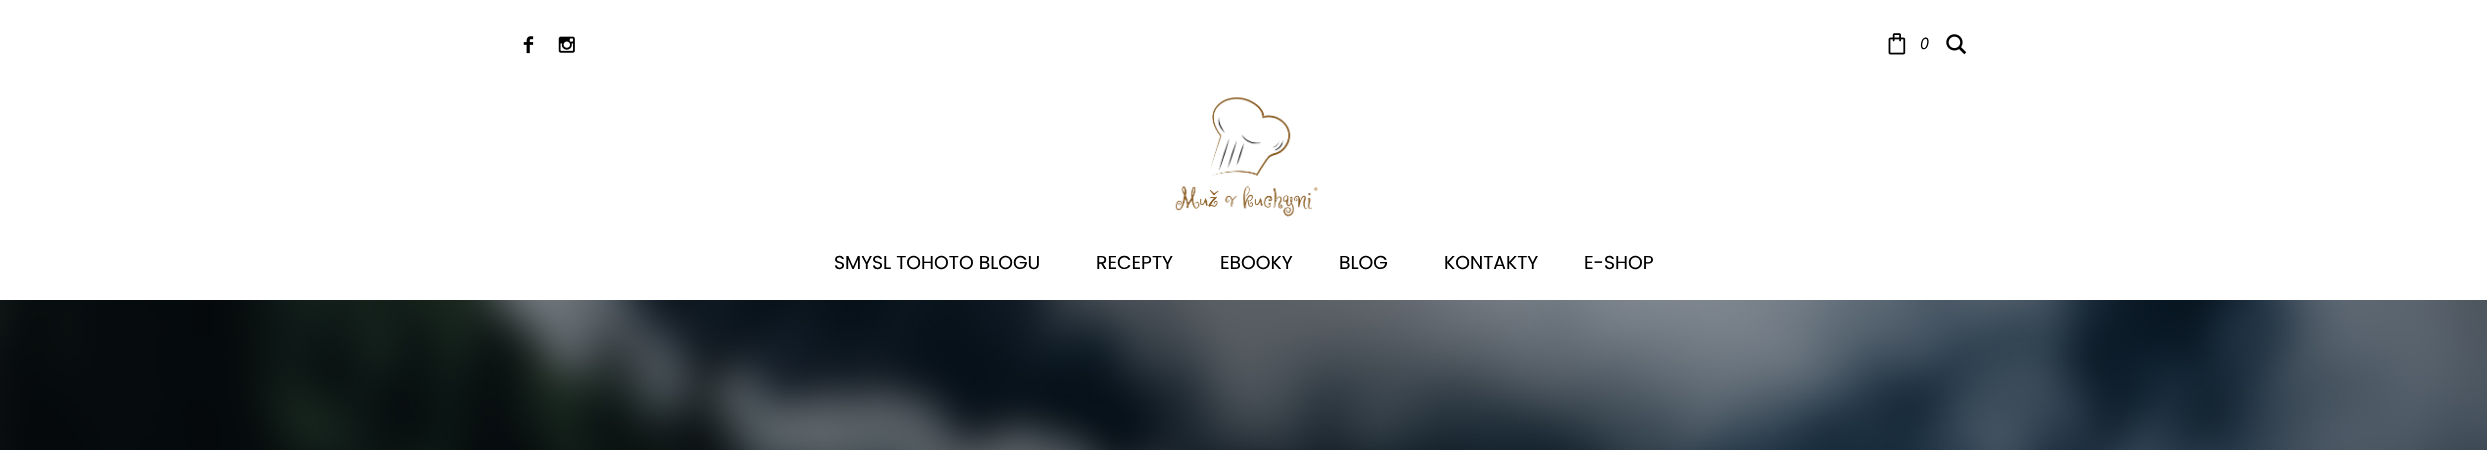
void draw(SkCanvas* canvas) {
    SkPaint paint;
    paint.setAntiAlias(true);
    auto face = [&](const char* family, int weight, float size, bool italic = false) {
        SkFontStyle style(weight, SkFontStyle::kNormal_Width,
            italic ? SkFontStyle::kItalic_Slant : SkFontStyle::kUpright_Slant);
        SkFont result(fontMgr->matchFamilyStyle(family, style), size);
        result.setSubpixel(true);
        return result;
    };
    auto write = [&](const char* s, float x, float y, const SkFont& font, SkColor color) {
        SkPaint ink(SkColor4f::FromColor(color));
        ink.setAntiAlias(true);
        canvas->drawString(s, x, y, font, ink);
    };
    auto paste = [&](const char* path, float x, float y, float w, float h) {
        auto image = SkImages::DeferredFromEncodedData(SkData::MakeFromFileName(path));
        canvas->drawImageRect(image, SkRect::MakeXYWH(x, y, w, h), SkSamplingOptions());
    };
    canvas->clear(SK_ColorWHITE);
    paste("pic1.png", 523, 36, 11, 18);
    paste("pic2.png", 558, 36, 17, 17);
    paste("pic3.png", 1888, 33, 18, 22);
    auto kFont1 = face("PT Sans", 400, 16, true);
    write("0", 1920, 49, kFont1, SK_ColorBLACK);
    paste("pic4.png", 1946, 34, 21, 21);
    paste("pic5.png", 1175, 97, 143, 120);
    auto kFont2 = face("Poppins", 400, 18.75f);
    write("SMYSL TOHOTO BLOGU", 834, 269, kFont2, SK_ColorBLACK);
    write("RECEPTY", 1096, 269, kFont2, SK_ColorBLACK);
    write("EBOOKY", 1220, 269, kFont2, SK_ColorBLACK);
    write("BLOG", 1339, 269, kFont2, SK_ColorBLACK);
    write("KONTAKTY", 1444, 269, kFont2, SK_ColorBLACK);
    write("E-SHOP", 1584, 269, kFont2, SK_ColorBLACK);
    paste("pic6.png", 0, 300, 2487, 150);
}
